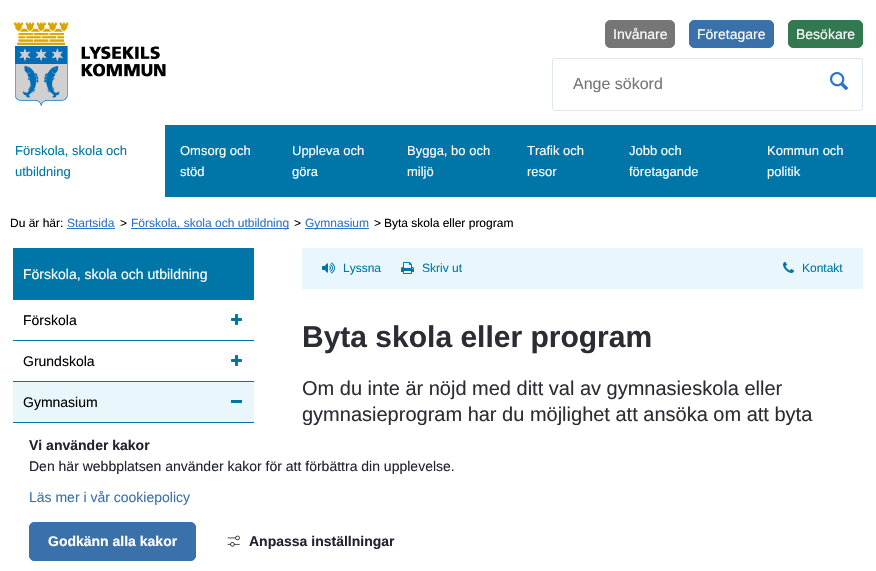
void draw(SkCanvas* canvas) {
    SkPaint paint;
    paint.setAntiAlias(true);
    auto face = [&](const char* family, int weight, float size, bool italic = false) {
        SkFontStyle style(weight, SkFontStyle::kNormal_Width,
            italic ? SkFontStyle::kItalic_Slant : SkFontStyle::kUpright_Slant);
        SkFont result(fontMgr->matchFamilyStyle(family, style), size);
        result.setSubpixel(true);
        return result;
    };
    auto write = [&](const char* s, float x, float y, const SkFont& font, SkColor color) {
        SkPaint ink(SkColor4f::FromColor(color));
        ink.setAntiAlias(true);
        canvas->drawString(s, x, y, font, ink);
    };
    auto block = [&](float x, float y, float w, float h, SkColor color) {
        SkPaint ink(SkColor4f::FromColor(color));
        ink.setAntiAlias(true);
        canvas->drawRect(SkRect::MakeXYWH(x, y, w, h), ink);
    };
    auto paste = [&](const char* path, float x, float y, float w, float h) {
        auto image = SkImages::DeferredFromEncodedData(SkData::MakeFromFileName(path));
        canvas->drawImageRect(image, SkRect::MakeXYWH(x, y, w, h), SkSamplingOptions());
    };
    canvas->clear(SK_ColorWHITE);
    paste("pic1.png", 14, 22, 152, 84);
    paint.setColor(SkColorSetRGB(118, 118, 118));
    canvas->drawRoundRect(SkRect::MakeXYWH(605.5f, 20.5f, 69, 27), 4.5f, 4.5f, paint);
    paint.setStyle(SkPaint::kStroke_Style);
    paint.setStrokeWidth(1);
    canvas->drawRoundRect(SkRect::MakeXYWH(605.5f, 20.5f, 69, 27), 4.5f, 4.5f, paint);
    auto kFont1 = face("Liberation Sans", 400, 14);
    write("Invånare", 613, 39, kFont1, SK_ColorWHITE);
    paint.setStyle(SkPaint::kFill_Style);
    paint.setColor(SkColorSetRGB(58, 113, 170));
    canvas->drawRoundRect(SkRect::MakeXYWH(689.5f, 20.5f, 84, 27), 4.5f, 4.5f, paint);
    paint.setStyle(SkPaint::kStroke_Style);
    canvas->drawRoundRect(SkRect::MakeXYWH(689.5f, 20.5f, 84, 27), 4.5f, 4.5f, paint);
    write("Företagare", 697, 39, kFont1, SK_ColorWHITE);
    paint.setStyle(SkPaint::kFill_Style);
    paint.setColor(SkColorSetRGB(50, 121, 81));
    canvas->drawRoundRect(SkRect::MakeXYWH(788.5f, 20.5f, 74, 27), 4.5f, 4.5f, paint);
    paint.setStyle(SkPaint::kStroke_Style);
    canvas->drawRoundRect(SkRect::MakeXYWH(788.5f, 20.5f, 74, 27), 4.5f, 4.5f, paint);
    write("Besökare", 796, 39, kFont1, SK_ColorWHITE);
    paint.setColor(SkColorSetRGB(223, 230, 238));
    canvas->drawRoundRect(SkRect::MakeXYWH(552.5f, 58.5f, 310, 52), 2.5f, 2.5f, paint);
    auto kFont2 = face("Liberation Sans", 400, 16);
    write("Ange sökord", 573, 89, kFont2, SkColorSetRGB(117, 117, 117));
    paste("pic2.png", 830, 72, 18, 18);
    block(165, 125, 711, 72, SkColorSetRGB(0, 118, 168));
    auto kFont3 = face("Liberation Sans", 400, 13);
    write("Förskola, skola och", 15, 155, kFont3, SkColorSetRGB(0, 118, 168));
    write("utbildning", 15, 176, kFont3, SkColorSetRGB(0, 118, 168));
    write("Omsorg och", 180, 155, kFont3, SK_ColorWHITE);
    write("stöd", 180, 176, kFont3, SK_ColorWHITE);
    write("Uppleva och", 292, 155, kFont3, SK_ColorWHITE);
    write("göra", 292, 176, kFont3, SK_ColorWHITE);
    write("Bygga, bo och", 407, 155, kFont3, SK_ColorWHITE);
    write("miljö", 407, 176, kFont3, SK_ColorWHITE);
    write("Trafik och", 527, 155, kFont3, SK_ColorWHITE);
    write("resor", 527, 176, kFont3, SK_ColorWHITE);
    write("Jobb och", 629, 155, kFont3, SK_ColorWHITE);
    write("företagande", 629, 176, kFont3, SK_ColorWHITE);
    write("Kommun och", 767, 155, kFont3, SK_ColorWHITE);
    write("politik", 767, 176, kFont3, SK_ColorWHITE);
    auto kFont4 = face("Liberation Sans", 400, 12);
    write("Du är här:", 10, 227, kFont4, SK_ColorBLACK);
    write("Startsida", 67, 227, kFont4, SkColorSetRGB(46, 114, 202));
    block(67, 228, 48, 1, SkColorSetRGB(46, 114, 202));
    write(">", 120, 227, kFont4, SK_ColorBLACK);
    block(131, 228, 158, 1, SkColorSetRGB(46, 114, 202));
    write("Förskola, skola och utbildning", 131, 227, kFont4, SkColorSetRGB(46, 114, 202));
    write(">", 294, 227, kFont4, SK_ColorBLACK);
    block(305, 228, 64, 1, SkColorSetRGB(46, 114, 202));
    write("Gymnasium", 305, 227, kFont4, SkColorSetRGB(46, 114, 202));
    write(">", 374, 227, kFont4, SK_ColorBLACK);
    write("Byta skola eller program", 384, 227, kFont4, SK_ColorBLACK);
    block(13, 248, 241, 52, SkColorSetRGB(0, 118, 168));
    write("Förskola, skola och utbildning", 23, 279, kFont1, SK_ColorWHITE);
    write("Förskola", 23, 325, kFont1, SK_ColorBLACK);
    paste("pic3.png", 231, 314, 11, 11);
    block(13, 340, 241, 1, SkColorSetRGB(0, 118, 168));
    write("Grundskola", 23, 366, kFont1, SK_ColorBLACK);
    paste("pic3.png", 231, 355, 11, 11);
    block(13, 382, 241, 40, SkColorSetRGB(233, 246, 252));
    block(13, 381, 241, 1, SkColorSetRGB(0, 118, 168));
    write("Gymnasium", 23, 407, kFont1, SK_ColorBLACK);
    block(231, 400, 11, 3, SkColorSetRGB(0, 118, 168));
    block(13, 422, 241, 1, SkColorSetRGB(0, 118, 168));
    block(302, 248, 561, 41, SkColorSetRGB(233, 246, 252));
    paste("pic4.png", 322, 262, 13, 12);
    write("Lyssna", 343, 272, kFont4, SkColorSetRGB(0, 118, 168));
    paste("pic5.png", 401, 262, 13, 12);
    write("Skriv ut", 422, 272, kFont4, SkColorSetRGB(0, 118, 168));
    paste("pic6.png", 783, 262, 11, 11);
    write("Kontakt", 802, 272, kFont4, SkColorSetRGB(0, 118, 168));
    auto kFont5 = face("Liberation Sans", 700, 30);
    write("Byta skola eller program", 302, 347, kFont5, SkColorSetRGB(44, 44, 52));
    auto kFont6 = face("Liberation Sans", 400, 20);
    write("Om du inte är nöjd med ditt val av gymnasieskola eller", 302, 395, kFont6, SkColorSetRGB(44, 44, 52));
    write("gymnasieprogram har du möjlighet att ansöka om att byta", 302, 421, kFont6, SkColorSetRGB(44, 44, 52));
    block(306, 425, 483, 1, SK_ColorWHITE);
    auto kFont7 = face("Liberation Sans", 700, 14);
    write("Vi använder kakor", 29, 450, kFont7, SkColorSetRGB(32, 35, 48));
    write("Den här webbplatsen använder kakor för att förbättra din upplevelse.", 29, 471, kFont1, SkColorSetRGB(32, 35, 48));
    write("Läs mer i vår cookiepolicy", 29, 502, kFont1, SkColorSetRGB(58, 113, 170));
    paint.setStyle(SkPaint::kFill_Style);
    paint.setColor(SkColorSetRGB(58, 113, 170));
    canvas->drawRoundRect(SkRect::MakeXYWH(29.5f, 522.5f, 166, 38), 4.5f, 4.5f, paint);
    paint.setStyle(SkPaint::kStroke_Style);
    canvas->drawRoundRect(SkRect::MakeXYWH(29.5f, 522.5f, 166, 38), 4.5f, 4.5f, paint);
    write("Godkänn alla kakor", 48, 546, kFont7, SK_ColorWHITE);
    paste("pic7.png", 227, 535, 13, 12);
    write("Anpassa inställningar", 249, 546, kFont7, SkColorSetRGB(32, 35, 48));
}
